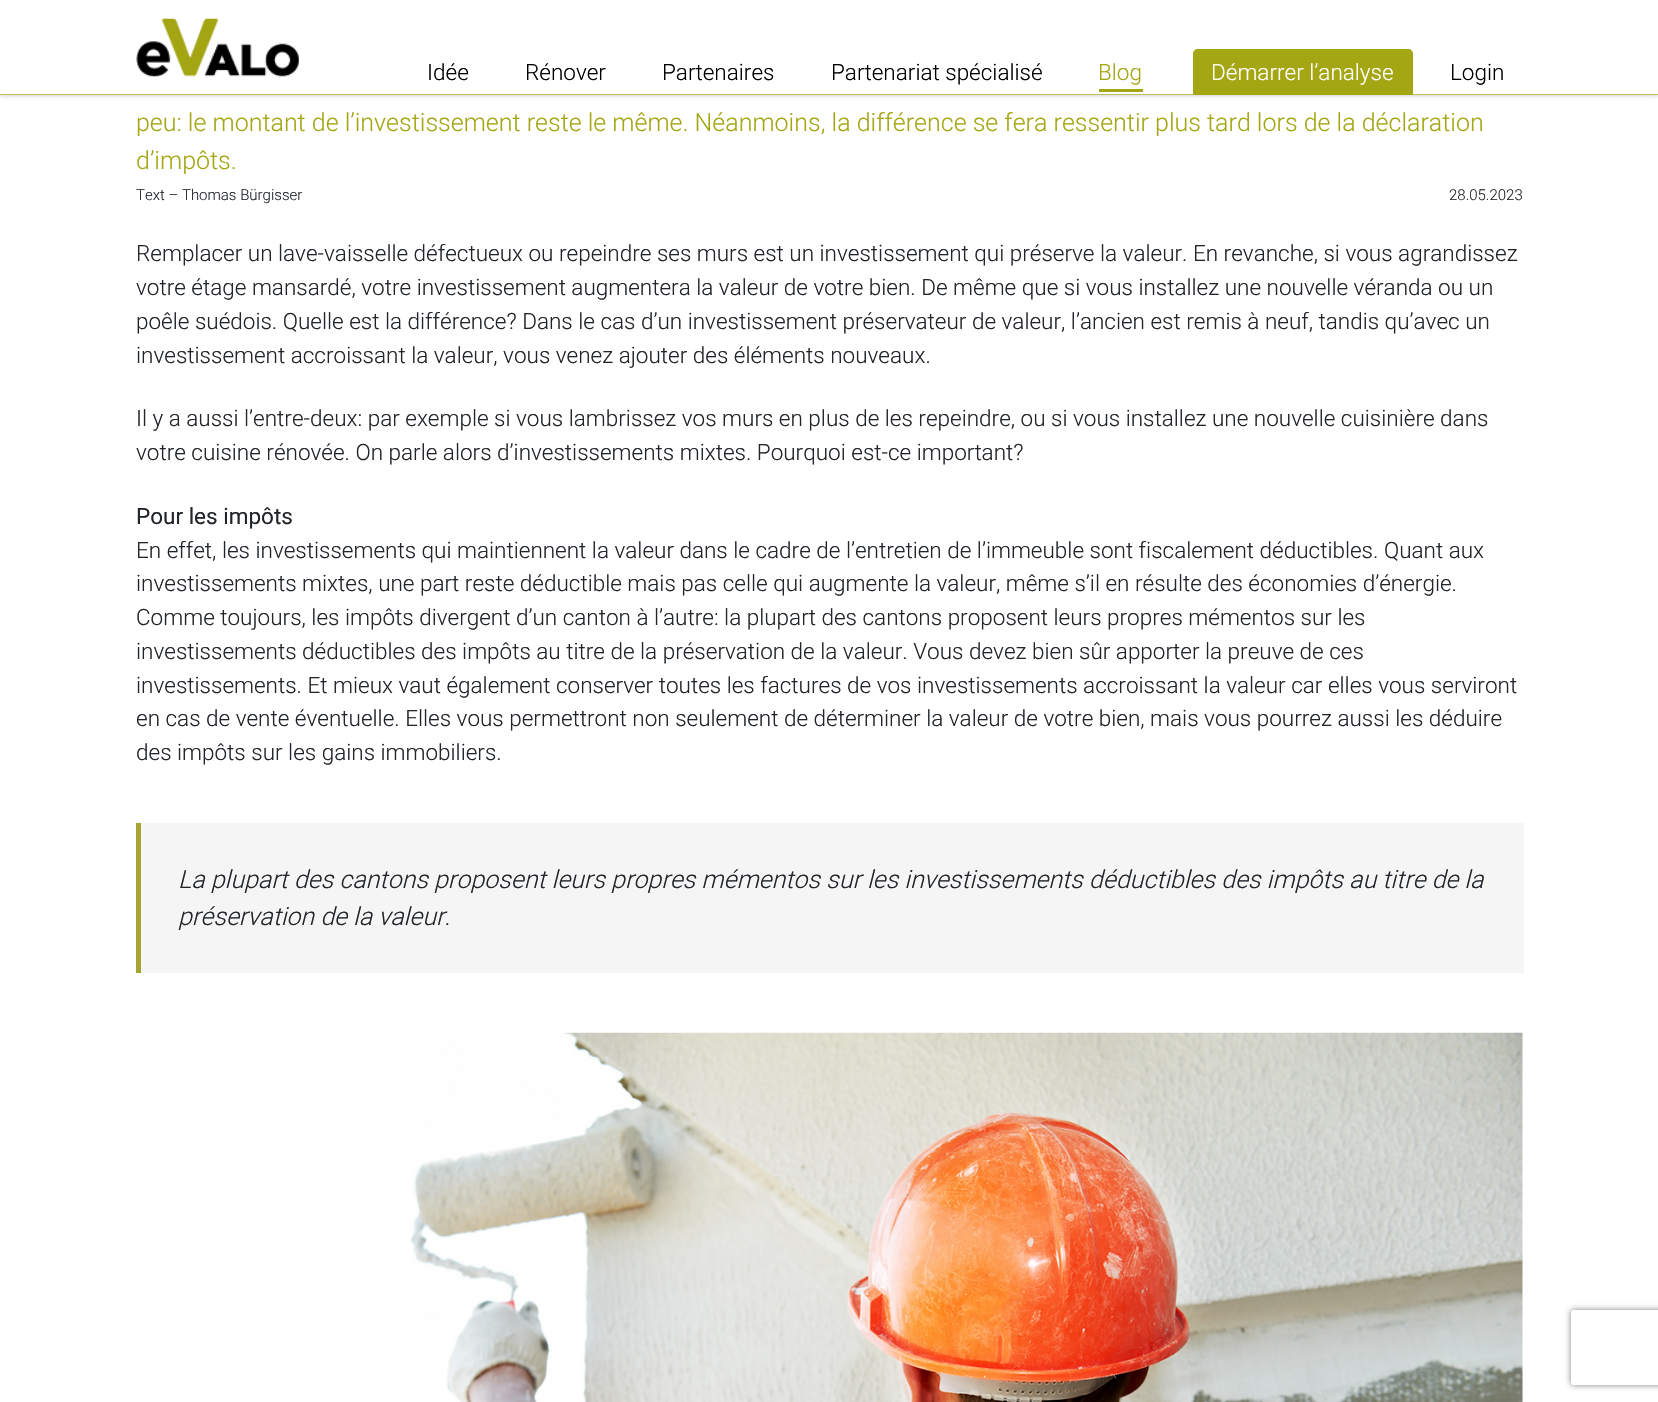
void draw(SkCanvas* canvas) {
    SkPaint paint;
    paint.setAntiAlias(true);
    auto face = [&](const char* family, int weight, float size, bool italic = false) {
        SkFontStyle style(weight, SkFontStyle::kNormal_Width,
            italic ? SkFontStyle::kItalic_Slant : SkFontStyle::kUpright_Slant);
        SkFont result(fontMgr->matchFamilyStyle(family, style), size);
        result.setSubpixel(true);
        return result;
    };
    auto write = [&](const char* s, float x, float y, const SkFont& font, SkColor color) {
        SkPaint ink(SkColor4f::FromColor(color));
        ink.setAntiAlias(true);
        canvas->drawString(s, x, y, font, ink);
    };
    auto block = [&](float x, float y, float w, float h, SkColor color) {
        SkPaint ink(SkColor4f::FromColor(color));
        ink.setAntiAlias(true);
        canvas->drawRect(SkRect::MakeXYWH(x, y, w, h), ink);
    };
    auto paste = [&](const char* path, float x, float y, float w, float h) {
        auto image = SkImages::DeferredFromEncodedData(SkData::MakeFromFileName(path));
        canvas->drawImageRect(image, SkRect::MakeXYWH(x, y, w, h), SkSamplingOptions());
    };
    canvas->clear(SK_ColorWHITE);
    paint.setColor(SkColorSetARGB(102, 140, 140, 140));
    paint.setMaskFilter(SkMaskFilter::MakeBlur(kNormal_SkBlurStyle, 2));
    canvas->drawRect(SkRect::MakeXYWH(0, 1, 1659, 95), paint);
    paint.setMaskFilter(nullptr);
    block(0, 0, 1658, 94, SK_ColorWHITE);
    block(0, 94, 1658, 1, SkColorSetRGB(191, 193, 90));
    paste("pic1.png", 136, 18, 163, 59);
    auto kFont1 = face("Roboto", 300, 22.5f);
    write("Idée", 427, 80, kFont1, SK_ColorBLACK);
    write("Rénover", 525, 80, kFont1, SK_ColorBLACK);
    write("Partenaires", 662, 80, kFont1, SK_ColorBLACK);
    write("Partenariat spécialisé", 831, 80, kFont1, SK_ColorBLACK);
    write("Blog", 1098, 80, kFont1, SkColorSetRGB(164, 166, 19));
    block(1099, 89, 44, 3, SkColorSetRGB(164, 166, 19));
    paint.setColor(SkColorSetRGB(164, 166, 19));
    canvas->drawPath(SkPathBuilder().moveTo(1198, 49).lineTo(1408, 49).cubicTo(1411, 49, 1413, 51, 1413, 54).lineTo(1413, 95).lineTo(1193, 95).lineTo(1193, 54).cubicTo(1193, 51, 1195, 49, 1198, 49).close().detach(), paint);
    write("Démarrer l’analyse", 1211, 80, kFont1, SK_ColorWHITE);
    write("Login", 1450, 80, kFont1, SK_ColorBLACK);
    auto kFont2 = face("Roboto", 300, 25);
    write("peu: le montant de l’investissement reste le même. Néanmoins, la différence se fera ressentir plus tard lors de la déclaration", 136, 131, kFont2, SkColorSetRGB(164, 166, 19));
    write("d’impôts.", 136, 169, kFont2, SkColorSetRGB(164, 166, 19));
    auto kFont3 = face("Roboto", 300, 15);
    write("Text – Thomas Bürgisser", 136, 200, kFont3, SkColorSetRGB(33, 37, 41));
    write("28.05.2023", 1449, 200, kFont3, SkColorSetRGB(33, 37, 41));
    write("Remplacer un lave-vaisselle défectueux ou repeindre ses murs est un investissement qui préserve la valeur. En revanche, si vous agrandissez", 136, 261, kFont1, SkColorSetRGB(33, 37, 41));
    write("votre étage mansardé, votre investissement augmentera la valeur de votre bien. De même que si vous installez une nouvelle véranda ou un", 136, 295, kFont1, SkColorSetRGB(33, 37, 41));
    write("poêle suédois. Quelle est la différence? Dans le cas d’un investissement préservateur de valeur, l’ancien est remis à neuf, tandis qu’avec un", 136, 329, kFont1, SkColorSetRGB(33, 37, 41));
    write("investissement accroissant la valeur, vous venez ajouter des éléments nouveaux.", 136, 363, kFont1, SkColorSetRGB(33, 37, 41));
    write("Il y a aussi l’entre-deux: par exemple si vous lambrissez vos murs en plus de les repeindre, ou si vous installez une nouvelle cuisinière dans", 136, 426, kFont1, SkColorSetRGB(33, 37, 41));
    write("votre cuisine rénovée. On parle alors d’investissements mixtes. Pourquoi est-ce important?", 136, 460, kFont1, SkColorSetRGB(33, 37, 41));
    auto kFont4 = face("Roboto", 400, 22.5f);
    write("Pour les impôts", 136, 524, kFont4, SkColorSetRGB(33, 37, 41));
    write("En effet, les investissements qui maintiennent la valeur dans le cadre de l’entretien de l’immeuble sont fiscalement déductibles. Quant aux", 136, 558, kFont1, SkColorSetRGB(33, 37, 41));
    write("investissements mixtes, une part reste déductible mais pas celle qui augmente la valeur, même s’il en résulte des économies d’énergie.", 136, 591, kFont1, SkColorSetRGB(33, 37, 41));
    write("Comme toujours, les impôts divergent d’un canton à l’autre: la plupart des cantons proposent leurs propres mémentos sur les", 136, 625, kFont1, SkColorSetRGB(33, 37, 41));
    write("investissements déductibles des impôts au titre de la préservation de la valeur. Vous devez bien sûr apporter la preuve de ces", 136, 659, kFont1, SkColorSetRGB(33, 37, 41));
    write("investissements. Et mieux vaut également conserver toutes les factures de vos investissements accroissant la valeur car elles vous serviront", 136, 693, kFont1, SkColorSetRGB(33, 37, 41));
    write("en cas de vente éventuelle. Elles vous permettront non seulement de déterminer la valeur de votre bien, mais vous pourrez aussi les déduire", 136, 726, kFont1, SkColorSetRGB(33, 37, 41));
    write("des impôts sur les gains immobiliers.", 136, 760, kFont1, SkColorSetRGB(33, 37, 41));
    block(141, 823, 1383, 150, SkColorSetRGB(245, 245, 245));
    block(136, 823, 5, 150, SkColorSetRGB(164, 166, 49));
    auto kFont5 = face("Roboto", 300, 25, true);
    write("La plupart des cantons proposent leurs propres mémentos sur les investissements déductibles des impôts au titre de la", 178, 888, kFont5, SkColorSetRGB(33, 37, 41));
    write("préservation de la valeur.", 178, 925, kFont5, SkColorSetRGB(33, 37, 41));
    paste("pic2.png", 410, 1032, 1113, 370);
    canvas->save();
    canvas->clipPath(SkPathBuilder(SkPathFillType::kEvenOdd).moveTo(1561, 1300).lineTo(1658, 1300).lineTo(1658, 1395).lineTo(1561, 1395).close().moveTo(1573.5f, 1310).lineTo(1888.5f, 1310).cubicTo(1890, 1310, 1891, 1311, 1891, 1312.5f).lineTo(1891, 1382.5f).cubicTo(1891, 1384, 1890, 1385, 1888.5f, 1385).lineTo(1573.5f, 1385).cubicTo(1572, 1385, 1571, 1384, 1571, 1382.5f).lineTo(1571, 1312.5f).cubicTo(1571, 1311, 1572, 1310, 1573.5f, 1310).close().detach(), true);
    paint.setColor(SkColorSetRGB(128, 128, 128));
    paint.setMaskFilter(SkMaskFilter::MakeBlur(kNormal_SkBlurStyle, 3));
    canvas->drawRoundRect(SkRect::MakeXYWH(1571, 1310, 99, 75), 2.5f, 2.5f, paint);
    paint.setMaskFilter(nullptr);
    canvas->restore();
}
